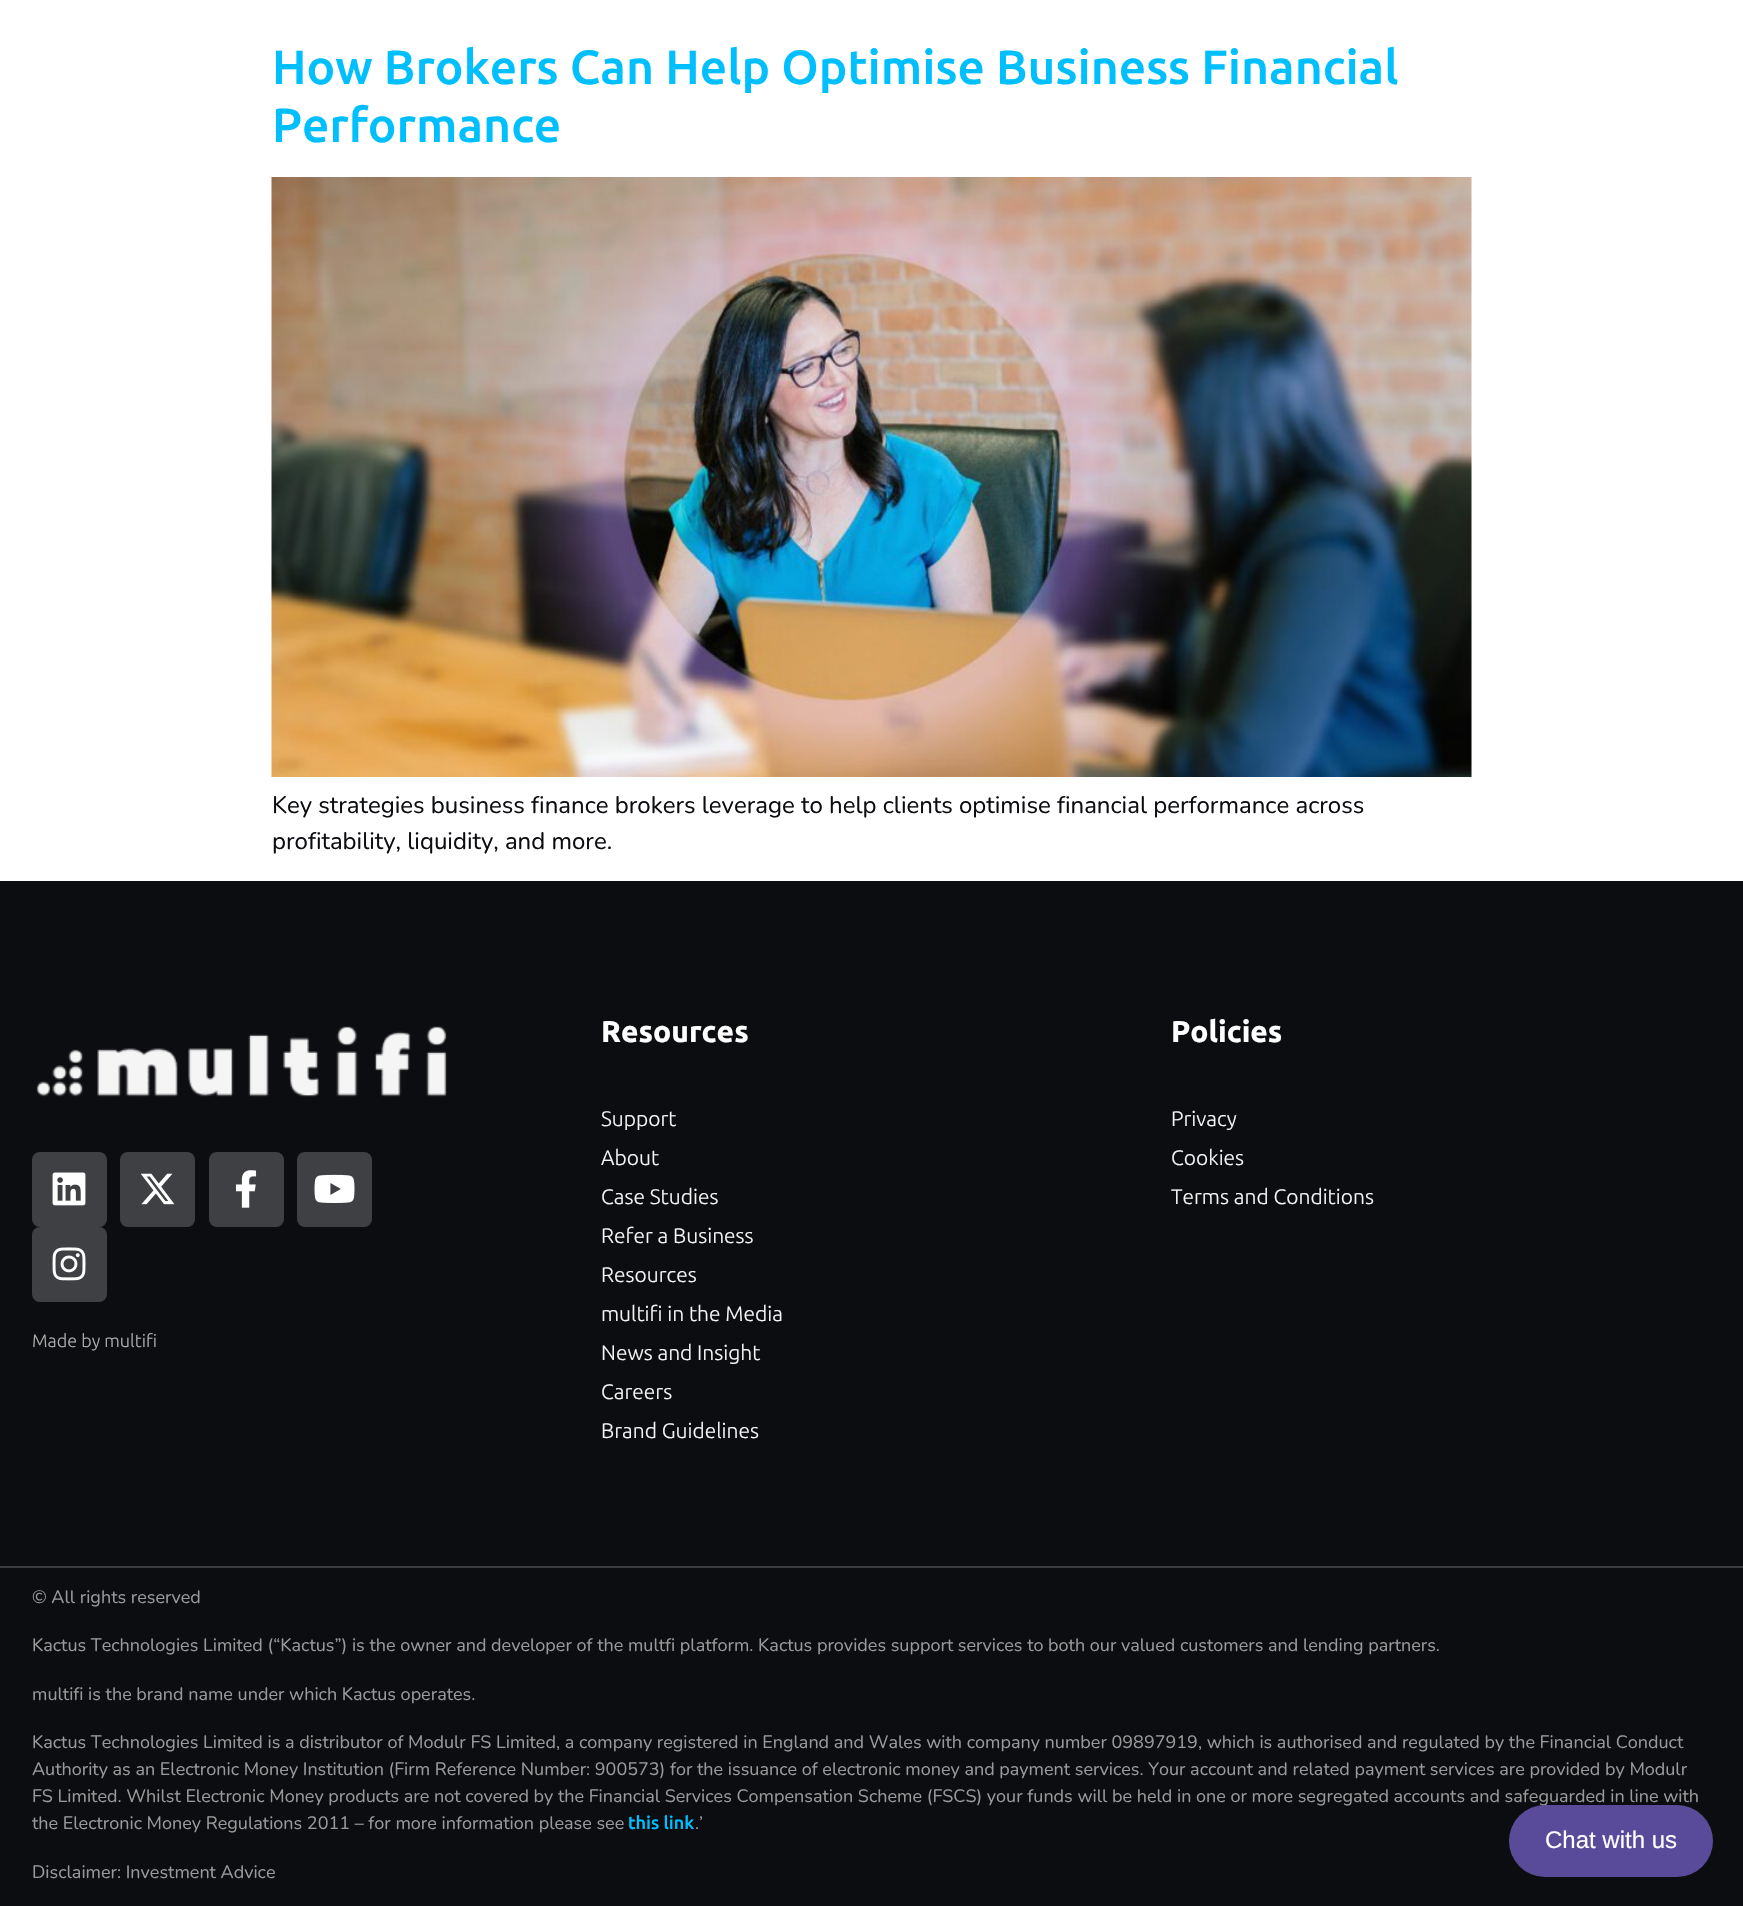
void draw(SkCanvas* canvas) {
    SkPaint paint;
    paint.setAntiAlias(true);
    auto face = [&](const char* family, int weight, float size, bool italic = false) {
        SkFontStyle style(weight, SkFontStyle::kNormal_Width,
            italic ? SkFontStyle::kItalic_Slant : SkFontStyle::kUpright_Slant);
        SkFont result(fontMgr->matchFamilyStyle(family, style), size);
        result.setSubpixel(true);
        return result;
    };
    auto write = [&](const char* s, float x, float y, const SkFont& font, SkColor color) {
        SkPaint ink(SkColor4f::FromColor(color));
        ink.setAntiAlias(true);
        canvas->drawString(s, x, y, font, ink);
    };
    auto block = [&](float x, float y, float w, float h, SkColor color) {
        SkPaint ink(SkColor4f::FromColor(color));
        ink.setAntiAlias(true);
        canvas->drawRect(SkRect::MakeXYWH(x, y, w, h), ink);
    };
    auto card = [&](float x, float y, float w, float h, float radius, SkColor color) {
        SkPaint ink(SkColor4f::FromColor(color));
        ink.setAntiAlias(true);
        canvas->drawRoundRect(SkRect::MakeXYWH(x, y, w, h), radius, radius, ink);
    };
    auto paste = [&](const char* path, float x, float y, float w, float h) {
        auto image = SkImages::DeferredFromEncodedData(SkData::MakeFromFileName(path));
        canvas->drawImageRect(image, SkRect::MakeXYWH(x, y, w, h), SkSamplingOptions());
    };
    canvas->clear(SK_ColorWHITE);
    auto kFont1 = face("Ubuntu", 500, 48);
    write("How Brokers Can Help Optimise Business Financial", 272, 84, kFont1, SkColorSetRGB(0, 191, 255));
    write("Performance", 272, 142, kFont1, SkColorSetRGB(0, 191, 255));
    paste("pic1.png", 271, 177, 1201, 600);
    auto kFont2 = face("Nunito", 400, 24);
    write("Key strategies business finance brokers leverage to help clients optimise financial performance across", 272, 813, kFont2, SkColorSetRGB(12, 13, 17));
    write("profitability, liquidity, and more.", 272, 849, kFont2, SkColorSetRGB(12, 13, 17));
    block(0, 881, 1743, 685, SkColorSetRGB(12, 13, 17));
    paste("pic2.png", 36, 1026, 411, 71);
    card(32, 1152, 75, 75, 8, SkColorSetRGB(63, 64, 67));
    paste("pic3.png", 52, 1172, 34, 34);
    card(120, 1152, 75, 75, 8, SkColorSetRGB(63, 64, 67));
    paste("pic4.png", 140, 1173, 35, 32);
    card(209, 1152, 75, 75, 8, SkColorSetRGB(63, 64, 67));
    paste("pic5.png", 235, 1170, 22, 38);
    card(297, 1152, 75, 75, 8, SkColorSetRGB(63, 64, 67));
    paste("pic6.png", 314, 1174, 41, 29);
    card(32, 1227, 75, 75, 8, SkColorSetRGB(63, 64, 67));
    paste("pic7.png", 52, 1247, 34, 34);
    auto kFont3 = face("Ubuntu", 300, 18);
    write("Made by multifi", 32, 1347, kFont3, SkColorSetRGB(173, 173, 173));
    auto kFont4 = face("Ubuntu", 700, 30);
    write("Resources", 601, 1042, kFont4, SK_ColorWHITE);
    auto kFont5 = face("Ubuntu", 300, 21);
    write("Support", 601, 1126, kFont5, SkColorSetRGB(245, 245, 245));
    write("About", 601, 1165, kFont5, SkColorSetRGB(245, 245, 245));
    write("Case Studies", 601, 1204, kFont5, SkColorSetRGB(245, 245, 245));
    write("Refer a Business", 601, 1243, kFont5, SkColorSetRGB(245, 245, 245));
    write("Resources", 601, 1282, kFont5, SkColorSetRGB(245, 245, 245));
    write("multifi in the Media", 601, 1321, kFont5, SkColorSetRGB(245, 245, 245));
    write("News and Insight", 601, 1360, kFont5, SkColorSetRGB(245, 245, 245));
    write("Careers", 601, 1399, kFont5, SkColorSetRGB(245, 245, 245));
    write("Brand Guidelines", 601, 1438, kFont5, SkColorSetRGB(245, 245, 245));
    write("Policies", 1171, 1042, kFont4, SK_ColorWHITE);
    write("Privacy", 1171, 1126, kFont5, SkColorSetRGB(245, 245, 245));
    write("Cookies", 1171, 1165, kFont5, SkColorSetRGB(245, 245, 245));
    write("Terms and Conditions", 1171, 1204, kFont5, SkColorSetRGB(245, 245, 245));
    block(0, 1568, 1743, 338, SkColorSetRGB(12, 13, 17));
    block(0, 1566, 1743, 2, SkColorSetRGB(58, 59, 62));
    auto kFont6 = face("Nunito", 400, 18);
    write("© All rights reserved", 32, 1603, kFont6, SkColorSetRGB(153, 153, 153));
    write("Kactus Technologies Limited (“Kactus”) is the owner and developer of the multfi platform. Kactus provides support services to both our valued customers and lending partners.", 32, 1651, kFont6, SkColorSetRGB(153, 153, 153));
    write("multifi is the brand name under which Kactus operates.", 32, 1700, kFont6, SkColorSetRGB(153, 153, 153));
    write("Kactus Technologies Limited is a distributor of Modulr FS Limited, a company registered in England and Wales with company number 09897919, which is authorised and regulated by the Financial Conduct", 32, 1748, kFont6, SkColorSetRGB(153, 153, 153));
    write("Authority as an Electronic Money Institution (Firm Reference Number: 900573) for the issuance of electronic money and payment services. Your account and related payment services are provided by Modulr", 32, 1775, kFont6, SkColorSetRGB(153, 153, 153));
    write("FS Limited. Whilst Electronic Money products are not covered by the Financial Services Compensation Scheme (FSCS) your funds will be held in one or more segregated accounts and safeguarded in line with", 32, 1802, kFont6, SkColorSetRGB(153, 153, 153));
    write("the Electronic Money Regulations 2011 – for more information please see", 32, 1829, kFont6, SkColorSetRGB(153, 153, 153));
    auto kFont7 = face("Ubuntu", 500, 18);
    write("this link", 628, 1829, kFont7, SkColorSetRGB(0, 191, 255));
    write(".’", 695, 1829, kFont6, SkColorSetRGB(153, 153, 153));
    write("Disclaimer: Investment Advice", 32, 1878, kFont6, SkColorSetRGB(153, 153, 153));
    card(1509, 1805, 204, 72, 36, SkColorSetRGB(90, 75, 154));
    auto kFont8 = face("Liberation Sans", 400, 24);
    write("Chat with us", 1545, 1848, kFont8, SK_ColorWHITE);
}
